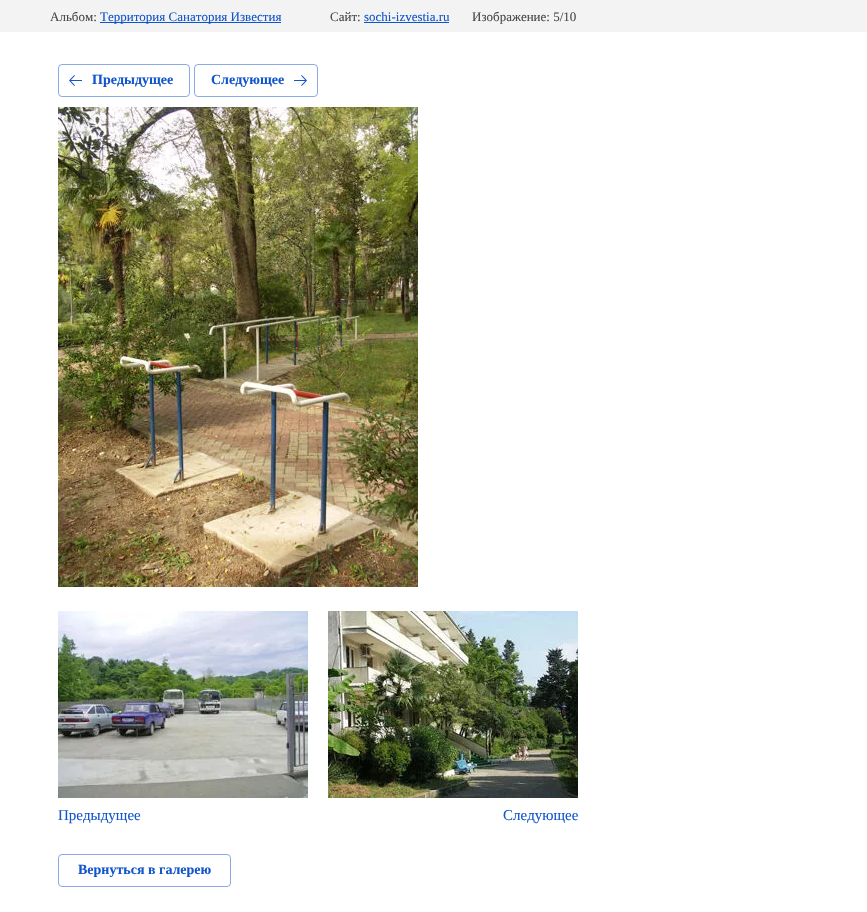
void draw(SkCanvas* canvas) {
    SkPaint paint;
    paint.setAntiAlias(true);
    auto face = [&](const char* family, int weight, float size, bool italic = false) {
        SkFontStyle style(weight, SkFontStyle::kNormal_Width,
            italic ? SkFontStyle::kItalic_Slant : SkFontStyle::kUpright_Slant);
        SkFont result(fontMgr->matchFamilyStyle(family, style), size);
        result.setSubpixel(true);
        return result;
    };
    auto write = [&](const char* s, float x, float y, const SkFont& font, SkColor color) {
        SkPaint ink(SkColor4f::FromColor(color));
        ink.setAntiAlias(true);
        canvas->drawString(s, x, y, font, ink);
    };
    auto block = [&](float x, float y, float w, float h, SkColor color) {
        SkPaint ink(SkColor4f::FromColor(color));
        ink.setAntiAlias(true);
        canvas->drawRect(SkRect::MakeXYWH(x, y, w, h), ink);
    };
    auto paste = [&](const char* path, float x, float y, float w, float h) {
        auto image = SkImages::DeferredFromEncodedData(SkData::MakeFromFileName(path));
        canvas->drawImageRect(image, SkRect::MakeXYWH(x, y, w, h), SkSamplingOptions());
    };
    canvas->clear(SK_ColorWHITE);
    block(0, 0, 867, 32, SkColorSetRGB(243, 243, 243));
    auto kFont1 = face("Liberation Serif", 400, 13);
    write("Альбом:", 50, 21, kFont1, SkColorSetRGB(72, 72, 72));
    block(100, 22, 181, 1, SkColorSetRGB(17, 85, 204));
    write("Территория Санатория Известия", 100, 21, kFont1, SkColorSetRGB(17, 85, 204));
    write("Сайт:", 330, 21, kFont1, SkColorSetRGB(72, 72, 72));
    write("sochi-izvestia.ru", 364, 21, kFont1, SkColorSetRGB(17, 85, 204));
    block(364, 22, 85, 1, SkColorSetRGB(17, 85, 204));
    write("Изображение: 5/10", 472, 21, kFont1, SkColorSetRGB(72, 72, 72));
    paint.setStyle(SkPaint::kStroke_Style);
    paint.setStrokeWidth(1);
    paint.setColor(SkColorSetRGB(136, 170, 230));
    canvas->drawRoundRect(SkRect::MakeXYWH(58.5f, 64.5f, 131, 32), 3.5f, 3.5f, paint);
    paste("pic1.png", 69, 75, 13, 11);
    auto kFont2 = face("Liberation Serif", 700, 14);
    write("Предыдущее", 92, 84, kFont2, SkColorSetRGB(17, 85, 204));
    canvas->drawRoundRect(SkRect::MakeXYWH(194.5f, 64.5f, 123, 32), 3.5f, 3.5f, paint);
    write("Следующее", 211, 84, kFont2, SkColorSetRGB(17, 85, 204));
    paste("pic2.png", 294, 75, 13, 11);
    paste("pic3.png", 58, 107, 360, 480);
    paste("pic4.png", 58, 611, 250, 187);
    auto kFont3 = face("Liberation Serif", 400, 15);
    write("Предыдущее", 58, 820, kFont3, SkColorSetRGB(17, 85, 204));
    paste("pic5.png", 328, 611, 250, 187);
    write("Следующее", 503, 820, kFont3, SkColorSetRGB(17, 85, 204));
    canvas->drawRoundRect(SkRect::MakeXYWH(58.5f, 854.5f, 172, 32), 3.5f, 3.5f, paint);
    write("Вернуться в галерею", 78, 874, kFont2, SkColorSetRGB(17, 85, 204));
}
